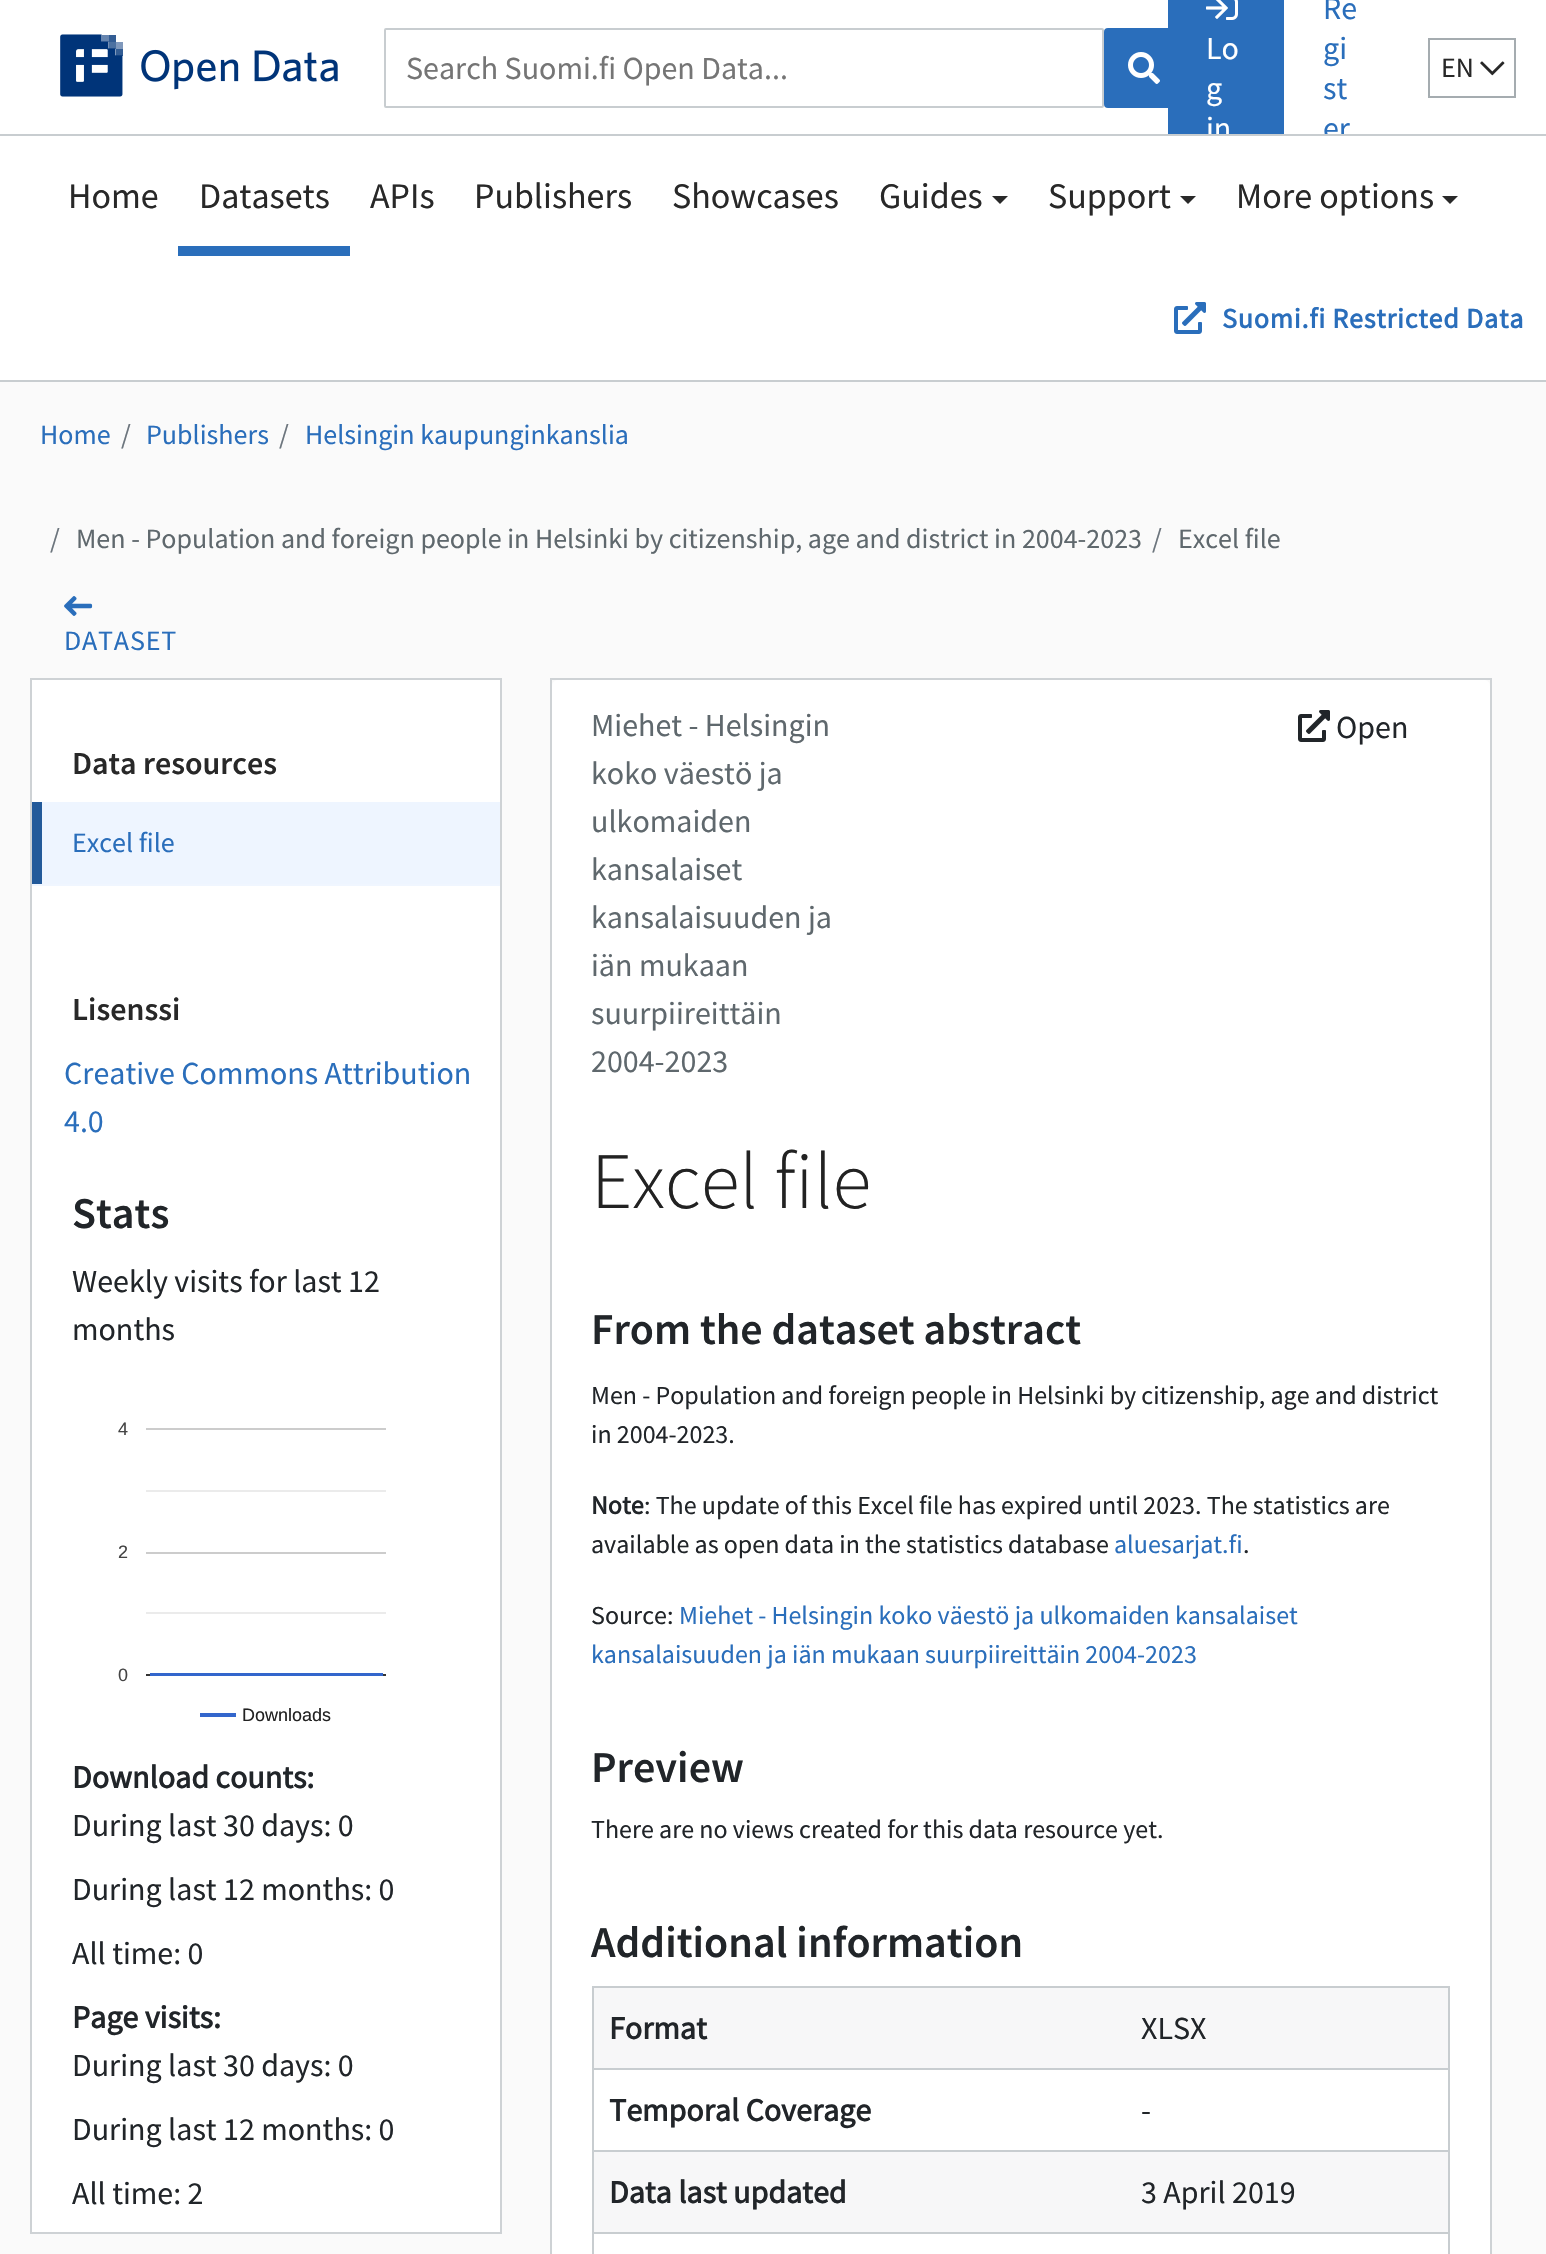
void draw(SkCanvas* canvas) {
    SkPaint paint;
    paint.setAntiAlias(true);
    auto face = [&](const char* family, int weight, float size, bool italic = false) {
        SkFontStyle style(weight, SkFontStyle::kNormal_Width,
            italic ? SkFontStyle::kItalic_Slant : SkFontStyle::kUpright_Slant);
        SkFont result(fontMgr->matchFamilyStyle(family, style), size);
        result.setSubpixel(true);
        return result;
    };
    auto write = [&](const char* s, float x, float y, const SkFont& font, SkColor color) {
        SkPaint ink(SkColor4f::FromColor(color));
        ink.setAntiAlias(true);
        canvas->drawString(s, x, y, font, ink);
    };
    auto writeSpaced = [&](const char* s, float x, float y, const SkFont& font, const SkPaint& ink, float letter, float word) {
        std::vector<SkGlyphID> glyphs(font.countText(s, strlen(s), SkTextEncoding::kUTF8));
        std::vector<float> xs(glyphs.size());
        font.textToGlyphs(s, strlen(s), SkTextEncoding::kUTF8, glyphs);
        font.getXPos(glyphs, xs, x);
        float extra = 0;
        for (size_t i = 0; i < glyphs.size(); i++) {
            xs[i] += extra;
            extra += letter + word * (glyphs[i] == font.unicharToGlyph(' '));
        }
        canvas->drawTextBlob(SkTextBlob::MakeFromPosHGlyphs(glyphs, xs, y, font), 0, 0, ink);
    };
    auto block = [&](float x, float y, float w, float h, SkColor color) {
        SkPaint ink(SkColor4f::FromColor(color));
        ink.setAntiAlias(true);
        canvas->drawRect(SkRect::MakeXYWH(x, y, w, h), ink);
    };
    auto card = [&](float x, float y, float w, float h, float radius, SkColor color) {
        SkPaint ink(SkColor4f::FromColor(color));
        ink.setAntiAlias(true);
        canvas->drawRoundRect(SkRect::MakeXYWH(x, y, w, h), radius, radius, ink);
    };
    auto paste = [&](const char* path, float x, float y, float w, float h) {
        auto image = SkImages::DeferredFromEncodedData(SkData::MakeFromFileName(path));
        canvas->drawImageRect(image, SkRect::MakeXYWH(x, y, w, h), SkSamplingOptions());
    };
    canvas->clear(SkColorSetRGB(250, 250, 250));
    block(0, 0, 1546, 134, SK_ColorWHITE);
    paste("pic1.png", 60, 34, 278, 63);
    paint.setStyle(SkPaint::kStroke_Style);
    paint.setStrokeWidth(2);
    paint.setColor(SkColorSetRGB(200, 205, 208));
    canvas->drawRoundRect(SkRect::MakeXYWH(385, 29, 718, 78), 1, 1, paint);
    auto kFont1 = face("Source Sans Pro", 400, 32);
    write("Search Suomi.fi Open Data...", 406, 79, kFont1, SkColorSetRGB(117, 117, 117));
    card(1104, 28, 80, 80, 4, SkColorSetRGB(42, 110, 187));
    paste("pic2.png", 1128, 52, 32, 32);
    block(1168, 0, 116, 134, SkColorSetRGB(42, 110, 187));
    paste("pic3.png", 1206, 0, 32, 20);
    write("Lo", 1206, 59, kFont1, SK_ColorWHITE);
    write("g", 1206, 99, kFont1, SK_ColorWHITE);
    write("in", 1206, 139, kFont1, SK_ColorWHITE);
    write("Re", 1323, 19, kFont1, SkColorSetRGB(42, 110, 187));
    write("gi", 1323, 59, kFont1, SkColorSetRGB(42, 110, 187));
    write("st", 1323, 99, kFont1, SkColorSetRGB(42, 110, 187));
    write("er", 1323, 139, kFont1, SkColorSetRGB(42, 110, 187));
    paint.setColor(SkColorSetRGB(165, 172, 176));
    canvas->drawRect(SkRect::MakeXYWH(1429, 39, 86, 58), paint);
    auto kFont2 = face("Source Sans Pro", 400, 28);
    write("EN", 1441, 77, kFont2, SkColorSetRGB(40, 40, 40));
    paste("pic4.png", 1480, 61, 25, 15);
    block(0, 136, 1546, 244, SK_ColorWHITE);
    block(0, 134, 1546, 2, SkColorSetRGB(200, 205, 208));
    block(0, 380, 1546, 2, SkColorSetRGB(200, 205, 208));
    auto kFont3 = face("Source Sans Pro", 400, 36);
    write("Home", 68, 208, kFont3, SkColorSetRGB(40, 40, 40));
    block(178, 246, 172, 10, SkColorSetRGB(42, 110, 187));
    write("Datasets", 199, 208, kFont3, SkColorSetRGB(40, 40, 40));
    write("APIs", 370, 208, kFont3, SkColorSetRGB(40, 40, 40));
    write("Publishers", 474, 208, kFont3, SkColorSetRGB(40, 40, 40));
    write("Showcases", 672, 208, kFont3, SkColorSetRGB(40, 40, 40));
    write("Guides", 879, 208, kFont3, SkColorSetRGB(40, 40, 40));
    paint.setStyle(SkPaint::kFill_Style);
    paint.setColor(SkColorSetRGB(41, 41, 41));
    canvas->drawPath(SkPathBuilder().moveTo(992, 196).lineTo(1008, 196).lineTo(1000, 204).close().detach(), paint);
    write("Support", 1048, 208, kFont3, SkColorSetRGB(40, 40, 40));
    canvas->drawPath(SkPathBuilder().moveTo(1180, 196).lineTo(1196, 196).lineTo(1188, 204).close().detach(), paint);
    write("More options", 1236, 208, kFont3, SkColorSetRGB(40, 40, 40));
    canvas->drawPath(SkPathBuilder().moveTo(1442, 196).lineTo(1458, 196).lineTo(1450, 204).close().detach(), paint);
    paste("pic5.png", 1174, 302, 32, 32);
    auto kFont4 = face("Source Sans Pro", 700, 28);
    paint.setColor(SkColorSetRGB(42, 110, 187));
    writeSpaced("Suomi.fi Restricted Data", 1222, 328, kFont4, paint, 0.8f, 0);
    write("Home", 40, 444, kFont2, SkColorSetRGB(42, 110, 187));
    write("/", 121, 444, kFont2, SkColorSetRGB(108, 117, 125));
    write("Publishers", 146, 444, kFont2, SkColorSetRGB(42, 110, 187));
    write("/", 279, 444, kFont2, SkColorSetRGB(108, 117, 125));
    write("Helsingin kaupunginkanslia", 305, 444, kFont2, SkColorSetRGB(42, 110, 187));
    write("/", 50, 548, kFont2, SkColorSetRGB(108, 117, 125));
    write("Men - Population and foreign people in Helsinki by citizenship, age and district in 2004-2023", 76, 548, kFont2, SkColorSetRGB(95, 104, 109));
    write("/", 1152, 548, kFont2, SkColorSetRGB(108, 117, 125));
    write("Excel file", 1178, 548, kFont2, SkColorSetRGB(95, 104, 109));
    paste("pic6.png", 64, 596, 29, 20);
    writeSpaced("DATASET", 64, 650, kFont2, paint, 0.8f, 0);
    paint.setColor(SK_ColorWHITE);
    canvas->drawRect(SkRect::MakeXYWH(31, 679, 470, 1554), paint);
    paint.setStyle(SkPaint::kStroke_Style);
    paint.setColor(SkColorSetRGB(206, 210, 213));
    canvas->drawRect(SkRect::MakeXYWH(31, 679, 470, 1554), paint);
    auto kFont5 = face("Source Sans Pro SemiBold", 600, 32);
    write("Data resources", 72, 774, kFont5, SkColorSetRGB(40, 40, 40));
    block(42, 802, 458, 82, SkColorSetRGB(238, 245, 255));
    block(32, 884, 468, 2, SkColorSetRGB(240, 246, 255));
    block(32, 802, 10, 82, SkColorSetRGB(35, 90, 154));
    write("Excel file", 72, 852, kFont2, SkColorSetRGB(42, 110, 187));
    write("Lisenssi", 72, 1020, kFont5, SkColorSetRGB(40, 40, 40));
    write("Creative Commons Attribution", 64, 1084, kFont1, SkColorSetRGB(42, 110, 187));
    write("4.0", 64, 1132, kFont1, SkColorSetRGB(42, 110, 187));
    auto kFont6 = face("Source Sans Pro SemiBold", 600, 44);
    write("Stats", 72, 1228, kFont6, SkColorSetRGB(33, 37, 41));
    write("Weekly visits for last 12", 72, 1292, kFont1, SkColorSetRGB(33, 37, 41));
    write("months", 72, 1340, kFont1, SkColorSetRGB(33, 37, 41));
    auto kFont7 = face("Liberation Sans", 400, 18);
    write("4", 118, 1435, kFont7, SkColorSetRGB(68, 68, 68));
    block(146, 1428, 240, 2, SkColorSetRGB(204, 204, 204));
    write("2", 118, 1558, kFont7, SkColorSetRGB(68, 68, 68));
    block(146, 1552, 240, 2, SkColorSetRGB(204, 204, 204));
    block(146, 1612, 240, 2, SkColorSetRGB(235, 235, 235));
    block(146, 1490, 240, 2, SkColorSetRGB(235, 235, 235));
    write("0", 118, 1681, kFont7, SkColorSetRGB(68, 68, 68));
    block(146, 1674, 240, 2, SkColorSetRGB(51, 51, 51));
    block(150, 1673, 233, 3, SkColorSetRGB(51, 102, 204));
    write("Downloads", 242, 1721, kFont7, SkColorSetRGB(34, 34, 34));
    block(200, 1713, 36, 4, SkColorSetRGB(51, 102, 204));
    auto kFont8 = face("Source Sans Pro", 700, 32);
    write("Download counts:", 72, 1788, kFont8, SkColorSetRGB(33, 37, 41));
    write("During last 30 days: 0", 72, 1836, kFont1, SkColorSetRGB(33, 37, 41));
    write("During last 12 months: 0", 72, 1900, kFont1, SkColorSetRGB(33, 37, 41));
    write("All time: 0", 72, 1964, kFont1, SkColorSetRGB(33, 37, 41));
    write("Page visits:", 72, 2028, kFont8, SkColorSetRGB(33, 37, 41));
    write("During last 30 days: 0", 72, 2076, kFont1, SkColorSetRGB(33, 37, 41));
    write("During last 12 months: 0", 72, 2140, kFont1, SkColorSetRGB(33, 37, 41));
    write("All time: 2", 72, 2204, kFont1, SkColorSetRGB(33, 37, 41));
    canvas->drawRect(SkRect::MakeXYWH(551, 679, 940, 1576), paint);
    paint.setStyle(SkPaint::kFill_Style);
    paint.setColor(SK_ColorWHITE);
    canvas->drawPath(SkPathBuilder().moveTo(558, 680).lineTo(1484, 680).cubicTo(1487.5f, 680, 1490, 682.5f, 1490, 686).lineTo(1490, 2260).lineTo(552, 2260).lineTo(552, 686).cubicTo(552, 682.5f, 554.5f, 680, 558, 680).close().detach(), paint);
    write("Miehet - Helsingin", 591, 736, kFont1, SkColorSetRGB(95, 104, 109));
    write("koko väestö ja", 591, 784, kFont1, SkColorSetRGB(95, 104, 109));
    write("ulkomaiden", 591, 832, kFont1, SkColorSetRGB(95, 104, 109));
    write("kansalaiset", 591, 880, kFont1, SkColorSetRGB(95, 104, 109));
    write("kansalaisuuden ja", 591, 928, kFont1, SkColorSetRGB(95, 104, 109));
    write("iän mukaan", 591, 976, kFont1, SkColorSetRGB(95, 104, 109));
    write("suurpiireittäin", 591, 1024, kFont1, SkColorSetRGB(95, 104, 109));
    write("2004-2023", 591, 1072, kFont1, SkColorSetRGB(95, 104, 109));
    paste("pic7.png", 1298, 710, 32, 32);
    write("Open", 1336, 738, kFont1, SkColorSetRGB(33, 37, 41));
    auto kFont9 = face("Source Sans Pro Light", 300, 80);
    write("Excel file", 591, 1208, kFont9, SkColorSetRGB(34, 34, 34));
    write("From the dataset abstract", 591, 1344, kFont6, SkColorSetRGB(33, 37, 41));
    auto kFont10 = face("Source Sans Pro", 400, 26);
    write("Men - Population and foreign people in Helsinki by citizenship, age and district", 591, 1404, kFont10, SkColorSetRGB(33, 37, 41));
    write("in 2004-2023.", 591, 1443, kFont10, SkColorSetRGB(33, 37, 41));
    auto kFont11 = face("Source Sans Pro", 700, 26);
    write("Note", 591, 1514, kFont11, SkColorSetRGB(33, 37, 41));
    write(": The update of this Excel file has expired until 2023. The statistics are", 644, 1514, kFont10, SkColorSetRGB(33, 37, 41));
    write("available as open data in the statistics database", 591, 1553, kFont10, SkColorSetRGB(33, 37, 41));
    write("aluesarjat.fi", 1114, 1553, kFont10, SkColorSetRGB(42, 110, 187));
    write(".", 1243, 1553, kFont10, SkColorSetRGB(33, 37, 41));
    write("Source:", 591, 1624, kFont10, SkColorSetRGB(33, 37, 41));
    write("Miehet - Helsingin koko väestö ja ulkomaiden kansalaiset", 679, 1624, kFont10, SkColorSetRGB(42, 110, 187));
    write("kansalaisuuden ja iän mukaan suurpiireittäin 2004-2023", 591, 1663, kFont10, SkColorSetRGB(42, 110, 187));
    write("Preview", 591, 1782, kFont6, SkColorSetRGB(33, 37, 41));
    write("There are no views created for this data resource yet.", 591, 1838, kFont10, SkColorSetRGB(33, 37, 41));
    write("Additional information", 591, 1957, kFont6, SkColorSetRGB(33, 37, 41));
    block(594, 1988, 854, 80, SkColorSetRGB(247, 247, 248));
    block(592, 1986, 858, 2, SkColorSetRGB(200, 205, 208));
    block(592, 2068, 858, 2, SkColorSetRGB(200, 205, 208));
    block(592, 2150, 858, 2, SkColorSetRGB(200, 205, 208));
    block(592, 2232, 858, 2, SkColorSetRGB(200, 205, 208));
    block(1448, 2232, 2, 22, SkColorSetRGB(200, 205, 208));
    block(1448, 2150, 2, 84, SkColorSetRGB(200, 205, 208));
    block(1448, 2068, 2, 84, SkColorSetRGB(200, 205, 208));
    block(1448, 1986, 2, 84, SkColorSetRGB(200, 205, 208));
    block(592, 2232, 2, 22, SkColorSetRGB(200, 205, 208));
    block(592, 2150, 2, 84, SkColorSetRGB(200, 205, 208));
    block(592, 2068, 2, 84, SkColorSetRGB(200, 205, 208));
    block(592, 1986, 2, 84, SkColorSetRGB(200, 205, 208));
    write("Format", 609, 2039, kFont8, SkColorSetRGB(33, 37, 41));
    write("XLSX", 1141, 2039, kFont1, SkColorSetRGB(33, 37, 41));
    write("Temporal Coverage", 609, 2121, kFont8, SkColorSetRGB(33, 37, 41));
    write("-", 1141, 2121, kFont1, SkColorSetRGB(33, 37, 41));
    block(594, 2152, 854, 80, SkColorSetRGB(247, 247, 248));
    write("Data last updated", 609, 2203, kFont8, SkColorSetRGB(33, 37, 41));
    write("3 April 2019", 1141, 2203, kFont1, SkColorSetRGB(33, 37, 41));
}
